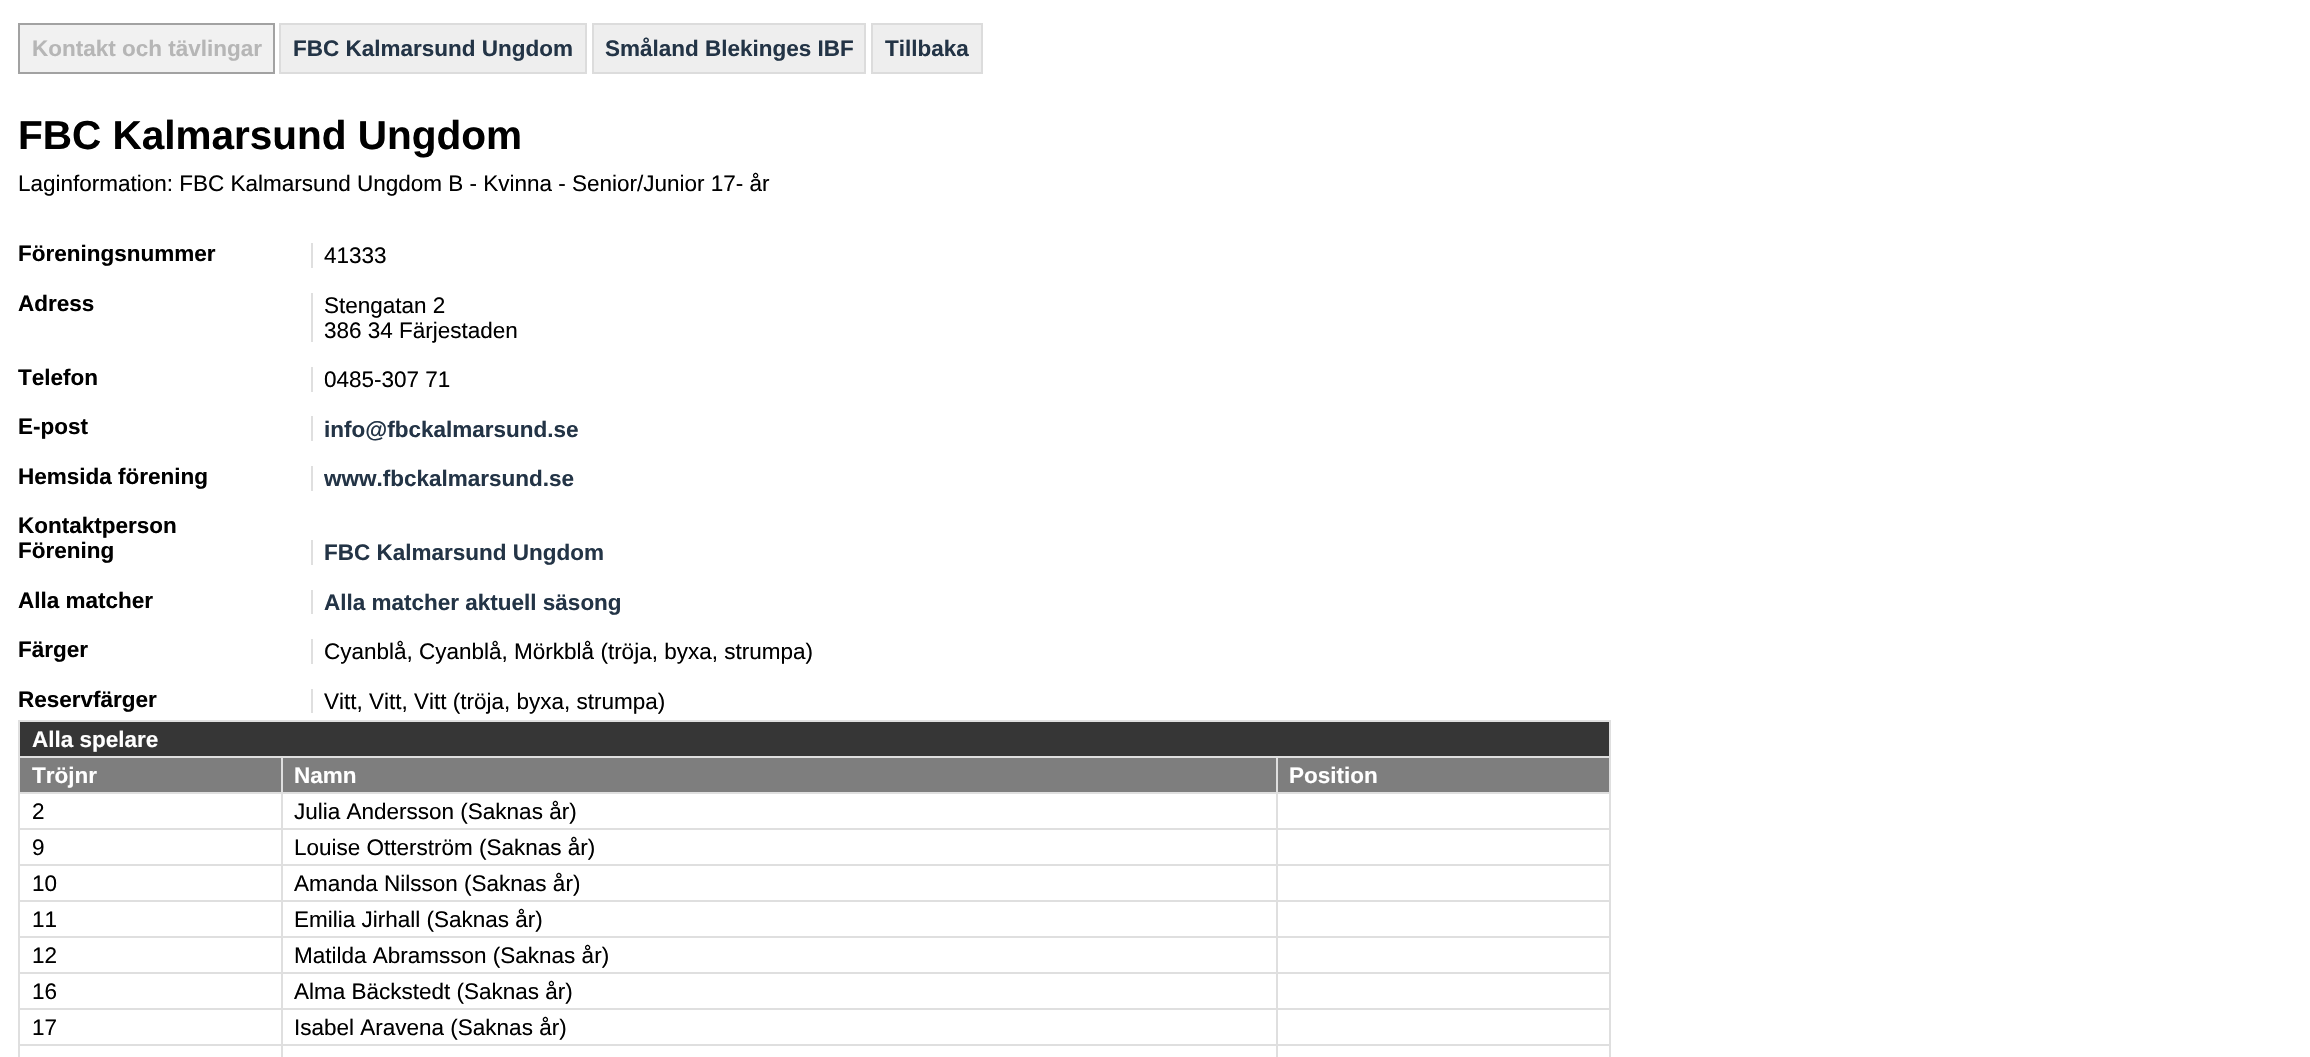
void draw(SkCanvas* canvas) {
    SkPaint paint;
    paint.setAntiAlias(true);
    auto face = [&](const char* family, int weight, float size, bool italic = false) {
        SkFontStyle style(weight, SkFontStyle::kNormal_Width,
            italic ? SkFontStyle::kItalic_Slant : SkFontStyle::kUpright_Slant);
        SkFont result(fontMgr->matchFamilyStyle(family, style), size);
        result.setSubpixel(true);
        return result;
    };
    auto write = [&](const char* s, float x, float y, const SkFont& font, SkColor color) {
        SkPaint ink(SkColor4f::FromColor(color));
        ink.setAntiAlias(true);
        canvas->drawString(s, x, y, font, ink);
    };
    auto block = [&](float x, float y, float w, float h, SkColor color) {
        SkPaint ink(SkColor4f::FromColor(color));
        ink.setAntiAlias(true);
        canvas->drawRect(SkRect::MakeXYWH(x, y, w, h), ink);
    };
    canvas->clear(SK_ColorWHITE);
    paint.setColor(SkColorSetRGB(241, 241, 241));
    canvas->drawRect(SkRect::MakeXYWH(19, 24, 255, 49), paint);
    paint.setStyle(SkPaint::kStroke_Style);
    paint.setStrokeWidth(2);
    paint.setColor(SkColorSetRGB(162, 162, 162));
    canvas->drawRect(SkRect::MakeXYWH(19, 24, 255, 49), paint);
    auto kFont1 = face("Liberation Sans", 700, 22.5f);
    write("Kontakt och tävlingar", 32, 56, kFont1, SkColorSetRGB(182, 182, 182));
    paint.setStyle(SkPaint::kFill_Style);
    paint.setColor(SkColorSetRGB(238, 238, 238));
    canvas->drawRect(SkRect::MakeXYWH(280, 24, 306, 49), paint);
    paint.setStyle(SkPaint::kStroke_Style);
    paint.setColor(SkColorSetRGB(220, 220, 220));
    canvas->drawRect(SkRect::MakeXYWH(280, 24, 306, 49), paint);
    write("FBC Kalmarsund Ungdom", 293, 56, kFont1, SkColorSetRGB(35, 52, 70));
    paint.setStyle(SkPaint::kFill_Style);
    paint.setColor(SkColorSetRGB(238, 238, 238));
    canvas->drawRect(SkRect::MakeXYWH(593, 24, 272, 49), paint);
    paint.setStyle(SkPaint::kStroke_Style);
    paint.setColor(SkColorSetRGB(220, 220, 220));
    canvas->drawRect(SkRect::MakeXYWH(593, 24, 272, 49), paint);
    write("Småland Blekinges IBF", 605, 56, kFont1, SkColorSetRGB(35, 52, 70));
    paint.setStyle(SkPaint::kFill_Style);
    paint.setColor(SkColorSetRGB(238, 238, 238));
    canvas->drawRect(SkRect::MakeXYWH(872, 24, 110, 49), paint);
    paint.setStyle(SkPaint::kStroke_Style);
    paint.setColor(SkColorSetRGB(220, 220, 220));
    canvas->drawRect(SkRect::MakeXYWH(872, 24, 110, 49), paint);
    write("Tillbaka", 885, 56, kFont1, SkColorSetRGB(35, 52, 70));
    auto kFont2 = face("Liberation Sans", 700, 40.5f);
    write("FBC Kalmarsund Ungdom", 18, 149, kFont2, SK_ColorBLACK);
    auto kFont3 = face("Liberation Sans", 400, 22.5f);
    write("Laginformation: FBC Kalmarsund Ungdom B - Kvinna - Senior/Junior 17- år", 18, 191, kFont3, SK_ColorBLACK);
    write("Föreningsnummer", 18, 261, kFont1, SK_ColorBLACK);
    block(311, 243, 2, 25, SkColorSetRGB(223, 223, 223));
    write("41333", 324, 263, kFont3, SK_ColorBLACK);
    write("Adress", 18, 311, kFont1, SK_ColorBLACK);
    block(311, 293, 2, 49, SkColorSetRGB(223, 223, 223));
    write("Stengatan 2", 324, 313, kFont3, SK_ColorBLACK);
    write("386 34 Färjestaden", 324, 338, kFont3, SK_ColorBLACK);
    write("Telefon", 18, 385, kFont1, SK_ColorBLACK);
    block(311, 367, 2, 25, SkColorSetRGB(223, 223, 223));
    write("0485-307 71", 324, 387, kFont3, SK_ColorBLACK);
    write("E-post", 18, 434, kFont1, SK_ColorBLACK);
    block(311, 416, 2, 25, SkColorSetRGB(223, 223, 223));
    write("info@fbckalmarsund.se", 324, 437, kFont1, SkColorSetRGB(35, 52, 70));
    write("Hemsida förening", 18, 484, kFont1, SK_ColorBLACK);
    block(311, 466, 2, 25, SkColorSetRGB(223, 223, 223));
    write("www.fbckalmarsund.se", 324, 486, kFont1, SkColorSetRGB(35, 52, 70));
    write("Kontaktperson", 18, 533, kFont1, SK_ColorBLACK);
    write("Förening", 18, 558, kFont1, SK_ColorBLACK);
    block(311, 540, 2, 25, SkColorSetRGB(223, 223, 223));
    write("FBC Kalmarsund Ungdom", 324, 560, kFont1, SkColorSetRGB(35, 52, 70));
    write("Alla matcher", 18, 608, kFont1, SK_ColorBLACK);
    block(311, 590, 2, 24, SkColorSetRGB(223, 223, 223));
    write("Alla matcher aktuell säsong", 324, 610, kFont1, SkColorSetRGB(35, 52, 70));
    write("Färger", 18, 657, kFont1, SK_ColorBLACK);
    block(311, 639, 2, 25, SkColorSetRGB(223, 223, 223));
    write("Cyanblå, Cyanblå, Mörkblå (tröja, byxa, strumpa)", 324, 659, kFont3, SK_ColorBLACK);
    write("Reservfärger", 18, 707, kFont1, SK_ColorBLACK);
    block(311, 689, 2, 24, SkColorSetRGB(223, 223, 223));
    write("Vitt, Vitt, Vitt (tröja, byxa, strumpa)", 324, 709, kFont3, SK_ColorBLACK);
    block(18, 720, 1593, 2, SkColorSetRGB(223, 223, 223));
    block(1609, 720, 2, 337, SkColorSetRGB(223, 223, 223));
    block(18, 720, 2, 337, SkColorSetRGB(223, 223, 223));
    block(20, 722, 1589, 34, SkColorSetRGB(54, 54, 54));
    write("Alla spelare", 32, 747, kFont1, SK_ColorWHITE);
    block(20, 758, 261, 34, SkColorSetRGB(126, 126, 126));
    block(1276, 756, 335, 2, SkColorSetRGB(223, 223, 223));
    block(1276, 1044, 2, 13, SkColorSetRGB(223, 223, 223));
    block(1276, 1044, 335, 2, SkColorSetRGB(223, 223, 223));
    block(1276, 1008, 2, 38, SkColorSetRGB(223, 223, 223));
    block(1276, 1008, 335, 2, SkColorSetRGB(223, 223, 223));
    block(1276, 972, 2, 38, SkColorSetRGB(223, 223, 223));
    block(1276, 972, 335, 2, SkColorSetRGB(223, 223, 223));
    block(1276, 936, 2, 38, SkColorSetRGB(223, 223, 223));
    block(1276, 936, 335, 2, SkColorSetRGB(223, 223, 223));
    block(1276, 900, 2, 38, SkColorSetRGB(223, 223, 223));
    block(1276, 900, 335, 2, SkColorSetRGB(223, 223, 223));
    block(1276, 864, 2, 38, SkColorSetRGB(223, 223, 223));
    block(1276, 864, 335, 2, SkColorSetRGB(223, 223, 223));
    block(1276, 828, 2, 38, SkColorSetRGB(223, 223, 223));
    block(1276, 828, 335, 2, SkColorSetRGB(223, 223, 223));
    block(1276, 792, 2, 38, SkColorSetRGB(223, 223, 223));
    block(1276, 792, 335, 2, SkColorSetRGB(223, 223, 223));
    block(1276, 756, 2, 38, SkColorSetRGB(223, 223, 223));
    block(281, 756, 997, 2, SkColorSetRGB(223, 223, 223));
    block(281, 1044, 2, 13, SkColorSetRGB(223, 223, 223));
    block(281, 1044, 997, 2, SkColorSetRGB(223, 223, 223));
    block(281, 1008, 2, 38, SkColorSetRGB(223, 223, 223));
    block(281, 1008, 997, 2, SkColorSetRGB(223, 223, 223));
    block(281, 972, 2, 38, SkColorSetRGB(223, 223, 223));
    block(281, 972, 997, 2, SkColorSetRGB(223, 223, 223));
    block(281, 936, 2, 38, SkColorSetRGB(223, 223, 223));
    block(281, 936, 997, 2, SkColorSetRGB(223, 223, 223));
    block(281, 900, 2, 38, SkColorSetRGB(223, 223, 223));
    block(281, 900, 997, 2, SkColorSetRGB(223, 223, 223));
    block(281, 864, 2, 38, SkColorSetRGB(223, 223, 223));
    block(281, 864, 997, 2, SkColorSetRGB(223, 223, 223));
    block(281, 828, 2, 38, SkColorSetRGB(223, 223, 223));
    block(281, 828, 997, 2, SkColorSetRGB(223, 223, 223));
    block(281, 792, 2, 38, SkColorSetRGB(223, 223, 223));
    block(281, 792, 997, 2, SkColorSetRGB(223, 223, 223));
    block(281, 756, 2, 38, SkColorSetRGB(223, 223, 223));
    block(18, 756, 266, 2, SkColorSetRGB(223, 223, 223));
    block(18, 792, 266, 2, SkColorSetRGB(223, 223, 223));
    write("Tröjnr", 32, 783, kFont1, SK_ColorWHITE);
    block(283, 758, 993, 34, SkColorSetRGB(126, 126, 126));
    write("Namn", 294, 783, kFont1, SK_ColorWHITE);
    block(1278, 758, 331, 34, SkColorSetRGB(126, 126, 126));
    write("Position", 1289, 783, kFont1, SK_ColorWHITE);
    block(18, 828, 266, 2, SkColorSetRGB(223, 223, 223));
    write("2", 32, 819, kFont3, SK_ColorBLACK);
    write("Julia Andersson (Saknas år)", 294, 819, kFont3, SK_ColorBLACK);
    block(18, 864, 266, 2, SkColorSetRGB(223, 223, 223));
    write("9", 32, 855, kFont3, SK_ColorBLACK);
    write("Louise Otterström (Saknas år)", 294, 855, kFont3, SK_ColorBLACK);
    block(18, 900, 266, 2, SkColorSetRGB(223, 223, 223));
    write("10", 32, 891, kFont3, SK_ColorBLACK);
    write("Amanda Nilsson (Saknas år)", 294, 891, kFont3, SK_ColorBLACK);
    block(18, 936, 266, 2, SkColorSetRGB(223, 223, 223));
    write("11", 32, 927, kFont3, SK_ColorBLACK);
    write("Emilia Jirhall (Saknas år)", 294, 927, kFont3, SK_ColorBLACK);
    block(18, 972, 266, 2, SkColorSetRGB(223, 223, 223));
    write("12", 32, 963, kFont3, SK_ColorBLACK);
    write("Matilda Abramsson (Saknas år)", 294, 963, kFont3, SK_ColorBLACK);
    block(18, 1008, 266, 2, SkColorSetRGB(223, 223, 223));
    write("16", 32, 999, kFont3, SK_ColorBLACK);
    write("Alma Bäckstedt (Saknas år)", 294, 999, kFont3, SK_ColorBLACK);
    block(18, 1044, 266, 2, SkColorSetRGB(223, 223, 223));
    write("17", 32, 1035, kFont3, SK_ColorBLACK);
    write("Isabel Aravena (Saknas år)", 294, 1035, kFont3, SK_ColorBLACK);
}
